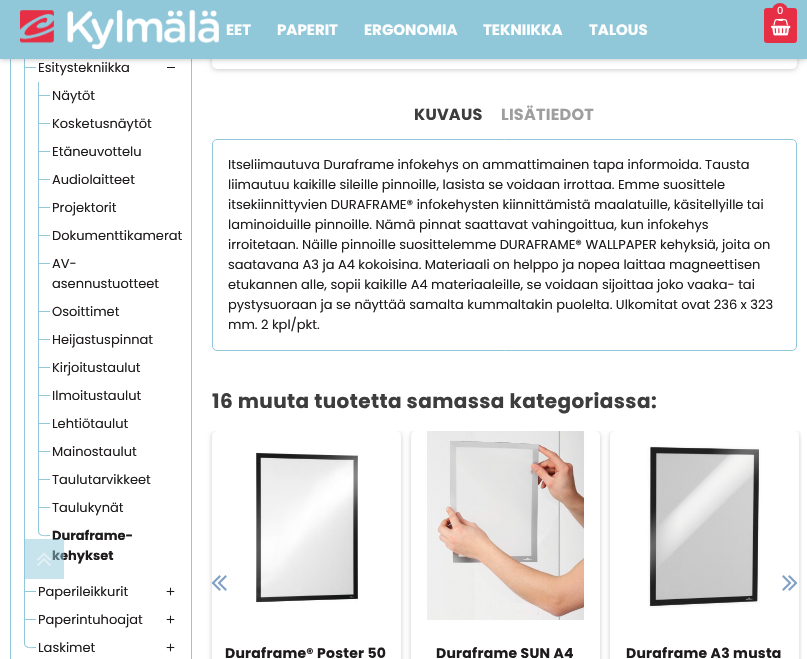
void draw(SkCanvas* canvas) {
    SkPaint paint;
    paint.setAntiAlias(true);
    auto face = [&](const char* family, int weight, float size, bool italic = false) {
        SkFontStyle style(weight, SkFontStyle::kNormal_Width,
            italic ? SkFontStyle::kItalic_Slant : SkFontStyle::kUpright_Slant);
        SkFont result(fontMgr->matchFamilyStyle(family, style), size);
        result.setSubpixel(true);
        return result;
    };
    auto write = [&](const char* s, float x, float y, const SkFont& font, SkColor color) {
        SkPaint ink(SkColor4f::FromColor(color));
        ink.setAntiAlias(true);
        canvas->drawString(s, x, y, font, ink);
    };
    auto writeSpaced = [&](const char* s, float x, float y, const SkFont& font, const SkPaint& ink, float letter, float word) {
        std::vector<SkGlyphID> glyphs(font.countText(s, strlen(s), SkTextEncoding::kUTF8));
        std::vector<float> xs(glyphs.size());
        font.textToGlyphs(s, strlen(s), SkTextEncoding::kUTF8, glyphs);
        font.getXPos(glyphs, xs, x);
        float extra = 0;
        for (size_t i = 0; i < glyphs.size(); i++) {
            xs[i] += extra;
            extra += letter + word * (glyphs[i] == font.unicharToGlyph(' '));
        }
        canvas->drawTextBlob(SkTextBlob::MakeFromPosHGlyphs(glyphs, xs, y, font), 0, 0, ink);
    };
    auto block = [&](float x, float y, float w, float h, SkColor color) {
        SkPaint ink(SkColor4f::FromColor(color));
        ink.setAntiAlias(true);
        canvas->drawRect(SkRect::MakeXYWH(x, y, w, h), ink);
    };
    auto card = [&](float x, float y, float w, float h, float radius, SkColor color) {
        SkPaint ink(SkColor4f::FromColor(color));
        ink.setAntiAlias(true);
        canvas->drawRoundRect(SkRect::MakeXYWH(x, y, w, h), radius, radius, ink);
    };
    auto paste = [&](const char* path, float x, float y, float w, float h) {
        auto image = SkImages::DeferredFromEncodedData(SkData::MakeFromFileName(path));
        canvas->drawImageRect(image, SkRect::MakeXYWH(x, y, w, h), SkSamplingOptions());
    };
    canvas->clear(SK_ColorWHITE);
    paint.setStyle(SkPaint::kStroke_Style);
    paint.setStrokeWidth(1);
    paint.setColor(SkColorSetRGB(144, 200, 218));
    canvas->drawRect(SkRect::MakeXYWH(10.5f, -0.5f, 181, 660), paint);
    block(24, 67, 12, 1, SkColorSetRGB(144, 200, 218));
    block(24, 54, 1, 530, SkColorSetRGB(144, 200, 218));
    block(167, 67, 8, 1, SkColorSetRGB(30, 27, 29));
    paint.setStyle(SkPaint::kFill_Style);
    paint.setColor(SkColorSetARGB(51, 0, 0, 0));
    paint.setMaskFilter(SkMaskFilter::MakeBlur(kNormal_SkBlurStyle, 2.5f));
    canvas->drawRoundRect(SkRect::MakeXYWH(212, -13, 585, 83), 5, 5, paint);
    paint.setMaskFilter(nullptr);
    card(212, -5, 585, 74, 5, SK_ColorWHITE);
    paint.setMaskFilter(SkMaskFilter::MakeBlur(kNormal_SkBlurStyle, 2.5f));
    canvas->drawRect(SkRect::MakeXYWH(0, 1, 807, 59), paint);
    paint.setMaskFilter(nullptr);
    block(0, 0, 807, 59, SkColorSetRGB(144, 200, 218));
    paste("pic1.png", 20, 10, 199, 39);
    auto kFont1 = face("Poppins", 700, 15);
    write("EET", 226, 35, kFont1, SK_ColorWHITE);
    write("PAPERIT", 277, 35, kFont1, SK_ColorWHITE);
    write("ERGONOMIA", 364, 35, kFont1, SK_ColorWHITE);
    write("TEKNIIKKA", 483, 35, kFont1, SK_ColorWHITE);
    write("TALOUS", 589, 35, kFont1, SK_ColorWHITE);
    card(764, 8, 33, 35, 3, SkColorSetRGB(230, 46, 69));
    paste("pic2.png", 771, 18, 20, 18);
    paint.setColor(SkColorSetRGB(230, 46, 69));
    canvas->drawCircle(780, 11, 8, paint);
    auto kFont2 = face("Poppins", 400, 10);
    write("0", 777, 14, kFont2, SK_ColorWHITE);
    auto kFont3 = face("Poppins", 400, 13);
    write("Esitystekniikka", 38, 72, kFont3, SkColorSetRGB(30, 27, 29));
    block(38, 95, 12, 1, SkColorSetRGB(144, 200, 218));
    block(38, 82, 1, 34, SkColorSetRGB(144, 200, 218));
    write("Näytöt", 52, 100, kFont3, SkColorSetRGB(30, 27, 29));
    block(38, 123, 12, 1, SkColorSetRGB(144, 200, 218));
    block(38, 110, 1, 34, SkColorSetRGB(144, 200, 218));
    write("Kosketusnäytöt", 52, 128, kFont3, SkColorSetRGB(30, 27, 29));
    block(38, 151, 12, 1, SkColorSetRGB(144, 200, 218));
    block(38, 138, 1, 34, SkColorSetRGB(144, 200, 218));
    write("Etäneuvottelu", 52, 156, kFont3, SkColorSetRGB(30, 27, 29));
    block(38, 179, 12, 1, SkColorSetRGB(144, 200, 218));
    block(38, 166, 1, 34, SkColorSetRGB(144, 200, 218));
    write("Audiolaitteet", 52, 184, kFont3, SkColorSetRGB(30, 27, 29));
    block(38, 207, 12, 1, SkColorSetRGB(144, 200, 218));
    block(38, 194, 1, 34, SkColorSetRGB(144, 200, 218));
    write("Projektorit", 52, 212, kFont3, SkColorSetRGB(30, 27, 29));
    block(38, 235, 12, 1, SkColorSetRGB(144, 200, 218));
    block(38, 222, 1, 34, SkColorSetRGB(144, 200, 218));
    write("Dokumenttikamerat", 52, 240, kFont3, SkColorSetRGB(30, 27, 29));
    block(38, 263, 12, 1, SkColorSetRGB(144, 200, 218));
    block(38, 250, 1, 54, SkColorSetRGB(144, 200, 218));
    write("AV-", 52, 268, kFont3, SkColorSetRGB(30, 27, 29));
    write("asennustuotteet", 52, 288, kFont3, SkColorSetRGB(30, 27, 29));
    block(38, 311, 12, 1, SkColorSetRGB(144, 200, 218));
    block(38, 298, 1, 34, SkColorSetRGB(144, 200, 218));
    write("Osoittimet", 52, 316, kFont3, SkColorSetRGB(30, 27, 29));
    block(38, 339, 12, 1, SkColorSetRGB(144, 200, 218));
    block(38, 326, 1, 34, SkColorSetRGB(144, 200, 218));
    write("Heijastuspinnat", 52, 344, kFont3, SkColorSetRGB(30, 27, 29));
    block(38, 367, 12, 1, SkColorSetRGB(144, 200, 218));
    block(38, 354, 1, 34, SkColorSetRGB(144, 200, 218));
    write("Kirjoitustaulut", 52, 372, kFont3, SkColorSetRGB(30, 27, 29));
    block(38, 395, 12, 1, SkColorSetRGB(144, 200, 218));
    block(38, 382, 1, 34, SkColorSetRGB(144, 200, 218));
    write("Ilmoitustaulut", 52, 400, kFont3, SkColorSetRGB(30, 27, 29));
    block(38, 423, 12, 1, SkColorSetRGB(144, 200, 218));
    block(38, 410, 1, 34, SkColorSetRGB(144, 200, 218));
    write("Lehtiötaulut", 52, 428, kFont3, SkColorSetRGB(30, 27, 29));
    block(38, 451, 12, 1, SkColorSetRGB(144, 200, 218));
    block(38, 438, 1, 34, SkColorSetRGB(144, 200, 218));
    write("Mainostaulut", 52, 456, kFont3, SkColorSetRGB(30, 27, 29));
    block(38, 479, 12, 1, SkColorSetRGB(144, 200, 218));
    block(38, 466, 1, 34, SkColorSetRGB(144, 200, 218));
    write("Taulutarvikkeet", 52, 484, kFont3, SkColorSetRGB(30, 27, 29));
    block(38, 507, 12, 1, SkColorSetRGB(144, 200, 218));
    block(38, 494, 1, 34, SkColorSetRGB(144, 200, 218));
    write("Taulukynät", 52, 512, kFont3, SkColorSetRGB(30, 27, 29));
    paint.setColor(SkColorSetRGB(144, 200, 218));
    canvas->drawPath(SkPathBuilder(SkPathFillType::kEvenOdd).moveTo(38, 522).lineTo(50, 522).lineTo(50, 536).cubicTo(46, 536, 38, 537.5f, 38, 531).close().moveTo(39, 522).lineTo(50, 522).lineTo(50, 535).cubicTo(46.5f, 535, 39, 536.5f, 39, 531).close().detach(), paint);
    auto kFont4 = face("Poppins", 700, 13);
    write("Duraframe-", 52, 540, kFont4, SkColorSetRGB(30, 27, 29));
    write("kehykset", 52, 560, kFont4, SkColorSetRGB(30, 27, 29));
    block(24, 591, 12, 1, SkColorSetRGB(144, 200, 218));
    block(24, 578, 1, 34, SkColorSetRGB(144, 200, 218));
    write("Paperileikkurit", 38, 596, kFont3, SkColorSetRGB(30, 27, 29));
    paste("pic3.png", 166, 587, 9, 9);
    block(24, 619, 12, 1, SkColorSetRGB(144, 200, 218));
    block(24, 606, 1, 34, SkColorSetRGB(144, 200, 218));
    write("Paperintuhoajat", 38, 624, kFont3, SkColorSetRGB(30, 27, 29));
    paste("pic3.png", 166, 615, 9, 9);
    canvas->drawPath(SkPathBuilder(SkPathFillType::kEvenOdd).moveTo(24, 634).lineTo(36, 634).lineTo(36, 648).cubicTo(32, 648, 24, 649.5f, 24, 643).close().moveTo(25, 634).lineTo(36, 634).lineTo(36, 647).cubicTo(32.5f, 647, 25, 648.5f, 25, 643).close().detach(), paint);
    write("Laskimet", 38, 652, kFont3, SkColorSetRGB(30, 27, 29));
    paste("pic3.png", 166, 643, 9, 9);
    auto kFont5 = face("Poppins", 700, 16);
    paint.setColor(SkColorSetRGB(61, 61, 61));
    writeSpaced("KUVAUS", 414, 120, kFont5, paint, 0.25f, 0);
    paint.setColor(SkColorSetRGB(158, 158, 158));
    writeSpaced("LISÄTIEDOT", 501, 120, kFont5, paint, 0.25f, 0);
    paint.setStyle(SkPaint::kStroke_Style);
    paint.setColor(SkColorSetRGB(144, 200, 218));
    canvas->drawRoundRect(SkRect::MakeXYWH(212.5f, 139.5f, 584, 211), 4.5f, 4.5f, paint);
    write("Itseliimautuva Duraframe infokehys on ammattimainen tapa informoida. Tausta", 228, 169, kFont3, SkColorSetRGB(30, 27, 29));
    write("liimautuu kaikille sileille pinnoille, lasista se voidaan irrottaa. Emme suosittele", 228, 189, kFont3, SkColorSetRGB(30, 27, 29));
    write("itsekiinnittyvien DURAFRAME® infokehysten kiinnittämistä maalatuille, käsitellyille tai", 228, 209, kFont3, SkColorSetRGB(30, 27, 29));
    write("laminoiduille pinnoille. Nämä pinnat saattavat vahingoittua, kun infokehys", 228, 229, kFont3, SkColorSetRGB(30, 27, 29));
    write("irroitetaan. Näille pinnoille suosittelemme DURAFRAME® WALLPAPER kehyksiä, joita on", 228, 249, kFont3, SkColorSetRGB(30, 27, 29));
    write("saatavana A3 ja A4 kokoisina. Materiaali on helppo ja nopea laittaa magneettisen", 228, 269, kFont3, SkColorSetRGB(30, 27, 29));
    write("etukannen alle, sopii kaikille A4 materiaaleille, se voidaan sijoittaa joko vaaka- tai", 228, 289, kFont3, SkColorSetRGB(30, 27, 29));
    write("pystysuoraan ja se näyttää samalta kummaltakin puolelta. Ulkomitat ovat 236 x 323", 228, 309, kFont3, SkColorSetRGB(30, 27, 29));
    write("mm. 2 kpl/pkt.", 228, 329, kFont3, SkColorSetRGB(30, 27, 29));
    auto kFont6 = face("Poppins", 700, 20);
    paint.setStyle(SkPaint::kFill_Style);
    paint.setColor(SkColorSetRGB(61, 61, 61));
    writeSpaced("16 muuta tuotetta samassa kategoriassa:", 212, 408, kFont6, paint, 0.4f, 0);
    canvas->save();
    canvas->clipRect(SkRect::MakeXYWH(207, 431, 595, 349));
    paint.setColor(SkColorSetARGB(51, 0, 0, 0));
    paint.setMaskFilter(SkMaskFilter::MakeBlur(kNormal_SkBlurStyle, 2.5f));
    canvas->drawRoundRect(SkRect::MakeXYWH(212, 432, 189, 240), 5, 5, paint);
    paint.setMaskFilter(nullptr);
    canvas->restore();
    card(212, 431, 189, 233, 5, SK_ColorWHITE);
    paste("pic4.png", 211, 575, 16, 16);
    canvas->save();
    canvas->clipRect(SkRect::MakeXYWH(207, 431, 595, 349));
    paint.setMaskFilter(SkMaskFilter::MakeBlur(kNormal_SkBlurStyle, 2.5f));
    canvas->drawRoundRect(SkRect::MakeXYWH(610, 432, 189, 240), 5, 5, paint);
    paint.setMaskFilter(nullptr);
    canvas->restore();
    card(610, 431, 189, 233, 5, SK_ColorWHITE);
    paste("pic5.png", 782, 575, 16, 16);
    paste("pic6.png", 256, 452, 102, 151);
    auto kFont7 = face("Poppins", 700, 14);
    paint.setColor(SkColorSetRGB(30, 27, 29));
    writeSpaced("Duraframe® Poster 50", 225, 658, kFont7, paint, 0.25f, 0);
    canvas->save();
    canvas->clipRect(SkRect::MakeXYWH(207, 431, 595, 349));
    paint.setColor(SkColorSetARGB(51, 0, 0, 0));
    paint.setMaskFilter(SkMaskFilter::MakeBlur(kNormal_SkBlurStyle, 2.5f));
    canvas->drawRoundRect(SkRect::MakeXYWH(411, 432, 189, 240), 5, 5, paint);
    paint.setMaskFilter(nullptr);
    canvas->restore();
    card(411, 431, 189, 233, 5, SK_ColorWHITE);
    paste("pic7.png", 427, 431, 160, 189);
    paint.setColor(SkColorSetRGB(30, 27, 29));
    writeSpaced("Duraframe SUN A4", 436, 658, kFont7, paint, 0.25f, 0);
    paste("pic8.png", 647, 446, 114, 162);
    writeSpaced("Duraframe A3 musta", 626, 658, kFont7, paint, 0.25f, 0);
    block(25, 539, 39, 40, SkColorSetARGB(128, 144, 200, 218));
    paste("pic9.png", 37, 552, 14, 14);
}
